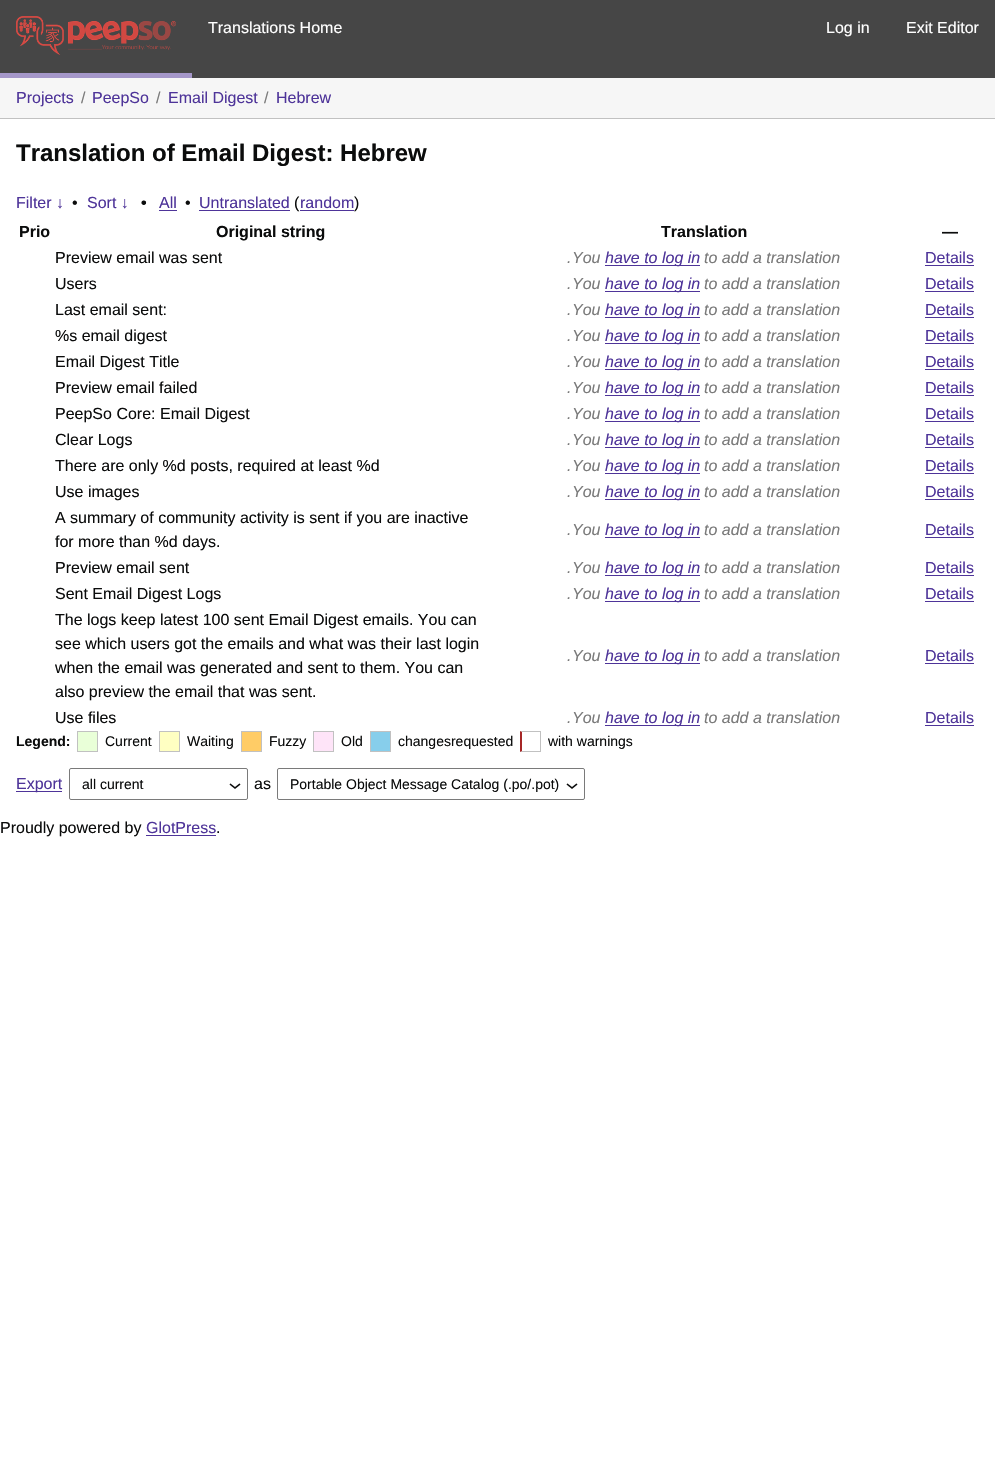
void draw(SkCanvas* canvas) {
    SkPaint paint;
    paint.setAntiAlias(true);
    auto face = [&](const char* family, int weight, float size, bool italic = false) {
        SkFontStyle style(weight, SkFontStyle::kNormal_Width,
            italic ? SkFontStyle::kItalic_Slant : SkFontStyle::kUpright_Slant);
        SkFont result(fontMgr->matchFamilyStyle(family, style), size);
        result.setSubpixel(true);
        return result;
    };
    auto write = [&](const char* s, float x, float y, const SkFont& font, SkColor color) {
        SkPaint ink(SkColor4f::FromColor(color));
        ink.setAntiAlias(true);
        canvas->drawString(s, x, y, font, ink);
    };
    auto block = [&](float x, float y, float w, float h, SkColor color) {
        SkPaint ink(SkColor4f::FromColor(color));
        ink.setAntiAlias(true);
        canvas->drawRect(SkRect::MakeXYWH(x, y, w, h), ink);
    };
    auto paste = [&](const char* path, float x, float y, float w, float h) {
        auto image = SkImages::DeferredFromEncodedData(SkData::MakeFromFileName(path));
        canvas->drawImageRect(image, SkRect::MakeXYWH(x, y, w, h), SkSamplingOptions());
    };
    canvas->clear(SK_ColorWHITE);
    block(0, 0, 995, 78, SkColorSetRGB(70, 70, 70));
    block(0, 73, 192, 5, SkColorSetRGB(165, 151, 201));
    paste("pic1.png", 16, 16, 160, 39);
    auto kFont1 = face("Liberation Sans", 400, 16);
    write("Translations Home", 208, 33, kFont1, SK_ColorWHITE);
    write("Log in", 826, 33, kFont1, SK_ColorWHITE);
    write("Exit Editor", 906, 33, kFont1, SK_ColorWHITE);
    block(0, 78, 995, 40, SkColorSetRGB(246, 246, 246));
    block(0, 118, 995, 1, SkColorSetRGB(193, 193, 193));
    write("Projects", 16, 103, kFont1, SkColorSetRGB(78, 52, 153));
    write("/", 81, 103, kFont1, SkColorSetRGB(122, 122, 122));
    write("PeepSo", 92, 103, kFont1, SkColorSetRGB(78, 52, 153));
    write("/", 156, 103, kFont1, SkColorSetRGB(122, 122, 122));
    write("Email Digest", 168, 103, kFont1, SkColorSetRGB(78, 52, 153));
    write("/", 264, 103, kFont1, SkColorSetRGB(122, 122, 122));
    write("Hebrew", 276, 103, kFont1, SkColorSetRGB(78, 52, 153));
    auto kFont2 = face("Liberation Sans", 700, 24);
    write("Translation of Email Digest: Hebrew", 16, 161, kFont2, SkColorSetRGB(11, 12, 12));
    write("Filter ↓", 16, 208, kFont1, SkColorSetRGB(78, 52, 153));
    write("•", 72, 208, kFont1, SkColorSetRGB(11, 12, 12));
    write("Sort ↓", 87, 208, kFont1, SkColorSetRGB(78, 52, 153));
    auto kFont3 = face("Liberation Sans", 700, 16);
    write("•", 141, 208, kFont3, SkColorSetRGB(11, 12, 12));
    write("All", 159, 208, kFont1, SkColorSetRGB(78, 52, 153));
    block(159, 210, 18, 1, SkColorSetRGB(78, 52, 153));
    write("•", 185, 208, kFont1, SkColorSetRGB(11, 12, 12));
    write("Untranslated", 199, 208, kFont1, SkColorSetRGB(78, 52, 153));
    block(199, 210, 91, 1, SkColorSetRGB(78, 52, 153));
    write("(", 294, 208, kFont1, SkColorSetRGB(11, 12, 12));
    write("random", 300, 208, kFont1, SkColorSetRGB(78, 52, 153));
    block(300, 210, 54, 1, SkColorSetRGB(78, 52, 153));
    write(")", 354, 208, kFont1, SkColorSetRGB(11, 12, 12));
    write("Prio", 19, 237, kFont3, SkColorSetRGB(11, 12, 12));
    write("Original string", 216, 237, kFont3, SkColorSetRGB(11, 12, 12));
    write("Translation", 661, 237, kFont3, SkColorSetRGB(11, 12, 12));
    write("—", 942, 237, kFont3, SkColorSetRGB(11, 12, 12));
    write("Preview email was sent", 55, 263, kFont1, SkColorSetRGB(11, 12, 12));
    auto kFont4 = face("Liberation Sans", 400, 16, true);
    write(".", 567, 263, kFont4, SkColorSetRGB(122, 122, 122));
    write("You", 572, 263, kFont4, SkColorSetRGB(122, 122, 122));
    block(605, 265, 95, 1, SkColorSetRGB(78, 52, 153));
    write("have to log in", 605, 263, kFont4, SkColorSetRGB(78, 52, 153));
    write("to add a translation", 704, 263, kFont4, SkColorSetRGB(122, 122, 122));
    write("Details", 925, 263, kFont1, SkColorSetRGB(78, 52, 153));
    block(925, 265, 49, 1, SkColorSetRGB(78, 52, 153));
    write("Users", 55, 289, kFont1, SkColorSetRGB(11, 12, 12));
    write(".", 567, 289, kFont4, SkColorSetRGB(122, 122, 122));
    write("You", 572, 289, kFont4, SkColorSetRGB(122, 122, 122));
    block(605, 291, 95, 1, SkColorSetRGB(78, 52, 153));
    write("have to log in", 605, 289, kFont4, SkColorSetRGB(78, 52, 153));
    write("to add a translation", 704, 289, kFont4, SkColorSetRGB(122, 122, 122));
    write("Details", 925, 289, kFont1, SkColorSetRGB(78, 52, 153));
    block(925, 291, 49, 1, SkColorSetRGB(78, 52, 153));
    write("Last email sent:", 55, 315, kFont1, SkColorSetRGB(11, 12, 12));
    write(".", 567, 315, kFont4, SkColorSetRGB(122, 122, 122));
    write("You", 572, 315, kFont4, SkColorSetRGB(122, 122, 122));
    block(605, 317, 95, 1, SkColorSetRGB(78, 52, 153));
    write("have to log in", 605, 315, kFont4, SkColorSetRGB(78, 52, 153));
    write("to add a translation", 704, 315, kFont4, SkColorSetRGB(122, 122, 122));
    write("Details", 925, 315, kFont1, SkColorSetRGB(78, 52, 153));
    block(925, 317, 49, 1, SkColorSetRGB(78, 52, 153));
    write("%s email digest", 55, 341, kFont1, SkColorSetRGB(11, 12, 12));
    write(".", 567, 341, kFont4, SkColorSetRGB(122, 122, 122));
    write("You", 572, 341, kFont4, SkColorSetRGB(122, 122, 122));
    block(605, 343, 95, 1, SkColorSetRGB(78, 52, 153));
    write("have to log in", 605, 341, kFont4, SkColorSetRGB(78, 52, 153));
    write("to add a translation", 704, 341, kFont4, SkColorSetRGB(122, 122, 122));
    write("Details", 925, 341, kFont1, SkColorSetRGB(78, 52, 153));
    block(925, 343, 49, 1, SkColorSetRGB(78, 52, 153));
    write("Email Digest Title", 55, 367, kFont1, SkColorSetRGB(11, 12, 12));
    write(".", 567, 367, kFont4, SkColorSetRGB(122, 122, 122));
    write("You", 572, 367, kFont4, SkColorSetRGB(122, 122, 122));
    block(605, 369, 95, 1, SkColorSetRGB(78, 52, 153));
    write("have to log in", 605, 367, kFont4, SkColorSetRGB(78, 52, 153));
    write("to add a translation", 704, 367, kFont4, SkColorSetRGB(122, 122, 122));
    write("Details", 925, 367, kFont1, SkColorSetRGB(78, 52, 153));
    block(925, 369, 49, 1, SkColorSetRGB(78, 52, 153));
    write("Preview email failed", 55, 393, kFont1, SkColorSetRGB(11, 12, 12));
    write(".", 567, 393, kFont4, SkColorSetRGB(122, 122, 122));
    write("You", 572, 393, kFont4, SkColorSetRGB(122, 122, 122));
    block(605, 395, 95, 1, SkColorSetRGB(78, 52, 153));
    write("have to log in", 605, 393, kFont4, SkColorSetRGB(78, 52, 153));
    write("to add a translation", 704, 393, kFont4, SkColorSetRGB(122, 122, 122));
    write("Details", 925, 393, kFont1, SkColorSetRGB(78, 52, 153));
    block(925, 395, 49, 1, SkColorSetRGB(78, 52, 153));
    write("PeepSo Core: Email Digest", 55, 419, kFont1, SkColorSetRGB(11, 12, 12));
    write(".", 567, 419, kFont4, SkColorSetRGB(122, 122, 122));
    write("You", 572, 419, kFont4, SkColorSetRGB(122, 122, 122));
    block(605, 421, 95, 1, SkColorSetRGB(78, 52, 153));
    write("have to log in", 605, 419, kFont4, SkColorSetRGB(78, 52, 153));
    write("to add a translation", 704, 419, kFont4, SkColorSetRGB(122, 122, 122));
    write("Details", 925, 419, kFont1, SkColorSetRGB(78, 52, 153));
    block(925, 421, 49, 1, SkColorSetRGB(78, 52, 153));
    write("Clear Logs", 55, 445, kFont1, SkColorSetRGB(11, 12, 12));
    write(".", 567, 445, kFont4, SkColorSetRGB(122, 122, 122));
    write("You", 572, 445, kFont4, SkColorSetRGB(122, 122, 122));
    block(605, 447, 95, 1, SkColorSetRGB(78, 52, 153));
    write("have to log in", 605, 445, kFont4, SkColorSetRGB(78, 52, 153));
    write("to add a translation", 704, 445, kFont4, SkColorSetRGB(122, 122, 122));
    write("Details", 925, 445, kFont1, SkColorSetRGB(78, 52, 153));
    block(925, 447, 49, 1, SkColorSetRGB(78, 52, 153));
    write("There are only %d posts, required at least %d", 55, 471, kFont1, SkColorSetRGB(11, 12, 12));
    write(".", 567, 471, kFont4, SkColorSetRGB(122, 122, 122));
    write("You", 572, 471, kFont4, SkColorSetRGB(122, 122, 122));
    block(605, 473, 95, 1, SkColorSetRGB(78, 52, 153));
    write("have to log in", 605, 471, kFont4, SkColorSetRGB(78, 52, 153));
    write("to add a translation", 704, 471, kFont4, SkColorSetRGB(122, 122, 122));
    write("Details", 925, 471, kFont1, SkColorSetRGB(78, 52, 153));
    block(925, 473, 49, 1, SkColorSetRGB(78, 52, 153));
    write("Use images", 55, 497, kFont1, SkColorSetRGB(11, 12, 12));
    write(".", 567, 497, kFont4, SkColorSetRGB(122, 122, 122));
    write("You", 572, 497, kFont4, SkColorSetRGB(122, 122, 122));
    block(605, 499, 95, 1, SkColorSetRGB(78, 52, 153));
    write("have to log in", 605, 497, kFont4, SkColorSetRGB(78, 52, 153));
    write("to add a translation", 704, 497, kFont4, SkColorSetRGB(122, 122, 122));
    write("Details", 925, 497, kFont1, SkColorSetRGB(78, 52, 153));
    block(925, 499, 49, 1, SkColorSetRGB(78, 52, 153));
    write("A summary of community activity is sent if you are inactive", 55, 523, kFont1, SkColorSetRGB(11, 12, 12));
    write("for more than %d days.", 55, 547, kFont1, SkColorSetRGB(11, 12, 12));
    write(".", 567, 535, kFont4, SkColorSetRGB(122, 122, 122));
    write("You", 572, 535, kFont4, SkColorSetRGB(122, 122, 122));
    block(605, 537, 95, 1, SkColorSetRGB(78, 52, 153));
    write("have to log in", 605, 535, kFont4, SkColorSetRGB(78, 52, 153));
    write("to add a translation", 704, 535, kFont4, SkColorSetRGB(122, 122, 122));
    write("Details", 925, 535, kFont1, SkColorSetRGB(78, 52, 153));
    block(925, 537, 49, 1, SkColorSetRGB(78, 52, 153));
    write("Preview email sent", 55, 573, kFont1, SkColorSetRGB(11, 12, 12));
    write(".", 567, 573, kFont4, SkColorSetRGB(122, 122, 122));
    write("You", 572, 573, kFont4, SkColorSetRGB(122, 122, 122));
    block(605, 575, 95, 1, SkColorSetRGB(78, 52, 153));
    write("have to log in", 605, 573, kFont4, SkColorSetRGB(78, 52, 153));
    write("to add a translation", 704, 573, kFont4, SkColorSetRGB(122, 122, 122));
    write("Details", 925, 573, kFont1, SkColorSetRGB(78, 52, 153));
    block(925, 575, 49, 1, SkColorSetRGB(78, 52, 153));
    write("Sent Email Digest Logs", 55, 599, kFont1, SkColorSetRGB(11, 12, 12));
    write(".", 567, 599, kFont4, SkColorSetRGB(122, 122, 122));
    write("You", 572, 599, kFont4, SkColorSetRGB(122, 122, 122));
    block(605, 601, 95, 1, SkColorSetRGB(78, 52, 153));
    write("have to log in", 605, 599, kFont4, SkColorSetRGB(78, 52, 153));
    write("to add a translation", 704, 599, kFont4, SkColorSetRGB(122, 122, 122));
    write("Details", 925, 599, kFont1, SkColorSetRGB(78, 52, 153));
    block(925, 601, 49, 1, SkColorSetRGB(78, 52, 153));
    write("The logs keep latest 100 sent Email Digest emails. You can", 55, 625, kFont1, SkColorSetRGB(11, 12, 12));
    write("see which users got the emails and what was their last login", 55, 649, kFont1, SkColorSetRGB(11, 12, 12));
    write("when the email was generated and sent to them. You can", 55, 673, kFont1, SkColorSetRGB(11, 12, 12));
    write("also preview the email that was sent.", 55, 697, kFont1, SkColorSetRGB(11, 12, 12));
    write(".", 567, 661, kFont4, SkColorSetRGB(122, 122, 122));
    write("You", 572, 661, kFont4, SkColorSetRGB(122, 122, 122));
    block(605, 663, 95, 1, SkColorSetRGB(78, 52, 153));
    write("have to log in", 605, 661, kFont4, SkColorSetRGB(78, 52, 153));
    write("to add a translation", 704, 661, kFont4, SkColorSetRGB(122, 122, 122));
    write("Details", 925, 661, kFont1, SkColorSetRGB(78, 52, 153));
    block(925, 663, 49, 1, SkColorSetRGB(78, 52, 153));
    write("Use files", 55, 723, kFont1, SkColorSetRGB(11, 12, 12));
    write(".", 567, 723, kFont4, SkColorSetRGB(122, 122, 122));
    write("You", 572, 723, kFont4, SkColorSetRGB(122, 122, 122));
    block(605, 725, 95, 1, SkColorSetRGB(78, 52, 153));
    write("have to log in", 605, 723, kFont4, SkColorSetRGB(78, 52, 153));
    write("to add a translation", 704, 723, kFont4, SkColorSetRGB(122, 122, 122));
    write("Details", 925, 723, kFont1, SkColorSetRGB(78, 52, 153));
    block(925, 725, 49, 1, SkColorSetRGB(78, 52, 153));
    auto kFont5 = face("Liberation Sans", 700, 14);
    write("Legend:", 16, 746, kFont5, SkColorSetRGB(11, 12, 12));
    paint.setColor(SkColorSetRGB(233, 255, 216));
    canvas->drawRect(SkRect::MakeXYWH(77.5f, 731.5f, 20, 20), paint);
    paint.setStyle(SkPaint::kStroke_Style);
    paint.setStrokeWidth(1);
    paint.setColor(SkColorSetRGB(193, 193, 193));
    canvas->drawRect(SkRect::MakeXYWH(77.5f, 731.5f, 20, 20), paint);
    auto kFont6 = face("Liberation Sans", 400, 14);
    write("Current", 105, 746, kFont6, SkColorSetRGB(11, 12, 12));
    paint.setStyle(SkPaint::kFill_Style);
    paint.setColor(SkColorSetRGB(255, 255, 194));
    canvas->drawRect(SkRect::MakeXYWH(159.5f, 731.5f, 20, 20), paint);
    paint.setStyle(SkPaint::kStroke_Style);
    paint.setColor(SkColorSetRGB(193, 193, 193));
    canvas->drawRect(SkRect::MakeXYWH(159.5f, 731.5f, 20, 20), paint);
    write("Waiting", 187, 746, kFont6, SkColorSetRGB(11, 12, 12));
    paint.setStyle(SkPaint::kFill_Style);
    paint.setColor(SkColorSetRGB(255, 204, 102));
    canvas->drawRect(SkRect::MakeXYWH(241.5f, 731.5f, 20, 20), paint);
    paint.setStyle(SkPaint::kStroke_Style);
    paint.setColor(SkColorSetRGB(193, 193, 193));
    canvas->drawRect(SkRect::MakeXYWH(241.5f, 731.5f, 20, 20), paint);
    write("Fuzzy", 269, 746, kFont6, SkColorSetRGB(11, 12, 12));
    paint.setStyle(SkPaint::kFill_Style);
    paint.setColor(SkColorSetRGB(254, 228, 248));
    canvas->drawRect(SkRect::MakeXYWH(313.5f, 731.5f, 20, 20), paint);
    paint.setStyle(SkPaint::kStroke_Style);
    paint.setColor(SkColorSetRGB(193, 193, 193));
    canvas->drawRect(SkRect::MakeXYWH(313.5f, 731.5f, 20, 20), paint);
    write("Old", 341, 746, kFont6, SkColorSetRGB(11, 12, 12));
    paint.setStyle(SkPaint::kFill_Style);
    paint.setColor(SkColorSetRGB(135, 206, 235));
    canvas->drawRect(SkRect::MakeXYWH(370.5f, 731.5f, 20, 20), paint);
    paint.setStyle(SkPaint::kStroke_Style);
    paint.setColor(SkColorSetRGB(193, 193, 193));
    canvas->drawRect(SkRect::MakeXYWH(370.5f, 731.5f, 20, 20), paint);
    write("changesrequested", 398, 746, kFont6, SkColorSetRGB(11, 12, 12));
    paint.setStyle(SkPaint::kFill_Style);
    canvas->drawPath(SkPathBuilder().moveTo(520, 731).lineTo(541, 731).lineTo(540, 732).lineTo(522, 732).close().detach(), paint);
    block(540, 731, 1, 21, SkColorSetRGB(193, 193, 193));
    canvas->drawPath(SkPathBuilder().moveTo(541, 752).lineTo(520, 752).lineTo(522, 751).lineTo(540, 751).close().detach(), paint);
    paint.setColor(SkColorSetRGB(166, 38, 38));
    canvas->drawPath(SkPathBuilder().moveTo(520, 752).lineTo(520, 731).lineTo(522, 732).lineTo(522, 751).close().detach(), paint);
    write("with warnings", 548, 746, kFont6, SkColorSetRGB(11, 12, 12));
    block(16, 791, 46, 1, SkColorSetRGB(78, 52, 153));
    write("Export", 16, 789, kFont1, SkColorSetRGB(78, 52, 153));
    paste("pic2.png", 229, 783, 12, 6);
    paint.setStyle(SkPaint::kStroke_Style);
    paint.setColor(SkColorSetRGB(122, 122, 122));
    canvas->drawRoundRect(SkRect::MakeXYWH(69.5f, 768.5f, 178, 31), 1.5f, 1.5f, paint);
    write("all current", 82, 789, kFont6, SkColorSetRGB(11, 12, 12));
    write("as", 254, 789, kFont1, SkColorSetRGB(11, 12, 12));
    paste("pic2.png", 566, 783, 12, 6);
    canvas->drawRoundRect(SkRect::MakeXYWH(277.5f, 768.5f, 307, 31), 1.5f, 1.5f, paint);
    write("Portable Object Message Catalog (.po/.pot)", 290, 789, kFont6, SkColorSetRGB(11, 12, 12));
    write("Proudly powered by", 0, 833, kFont1, SkColorSetRGB(11, 12, 12));
    write("GlotPress", 146, 833, kFont1, SkColorSetRGB(78, 52, 153));
    block(146, 835, 70, 1, SkColorSetRGB(78, 52, 153));
    write(".", 216, 833, kFont1, SkColorSetRGB(11, 12, 12));
}
